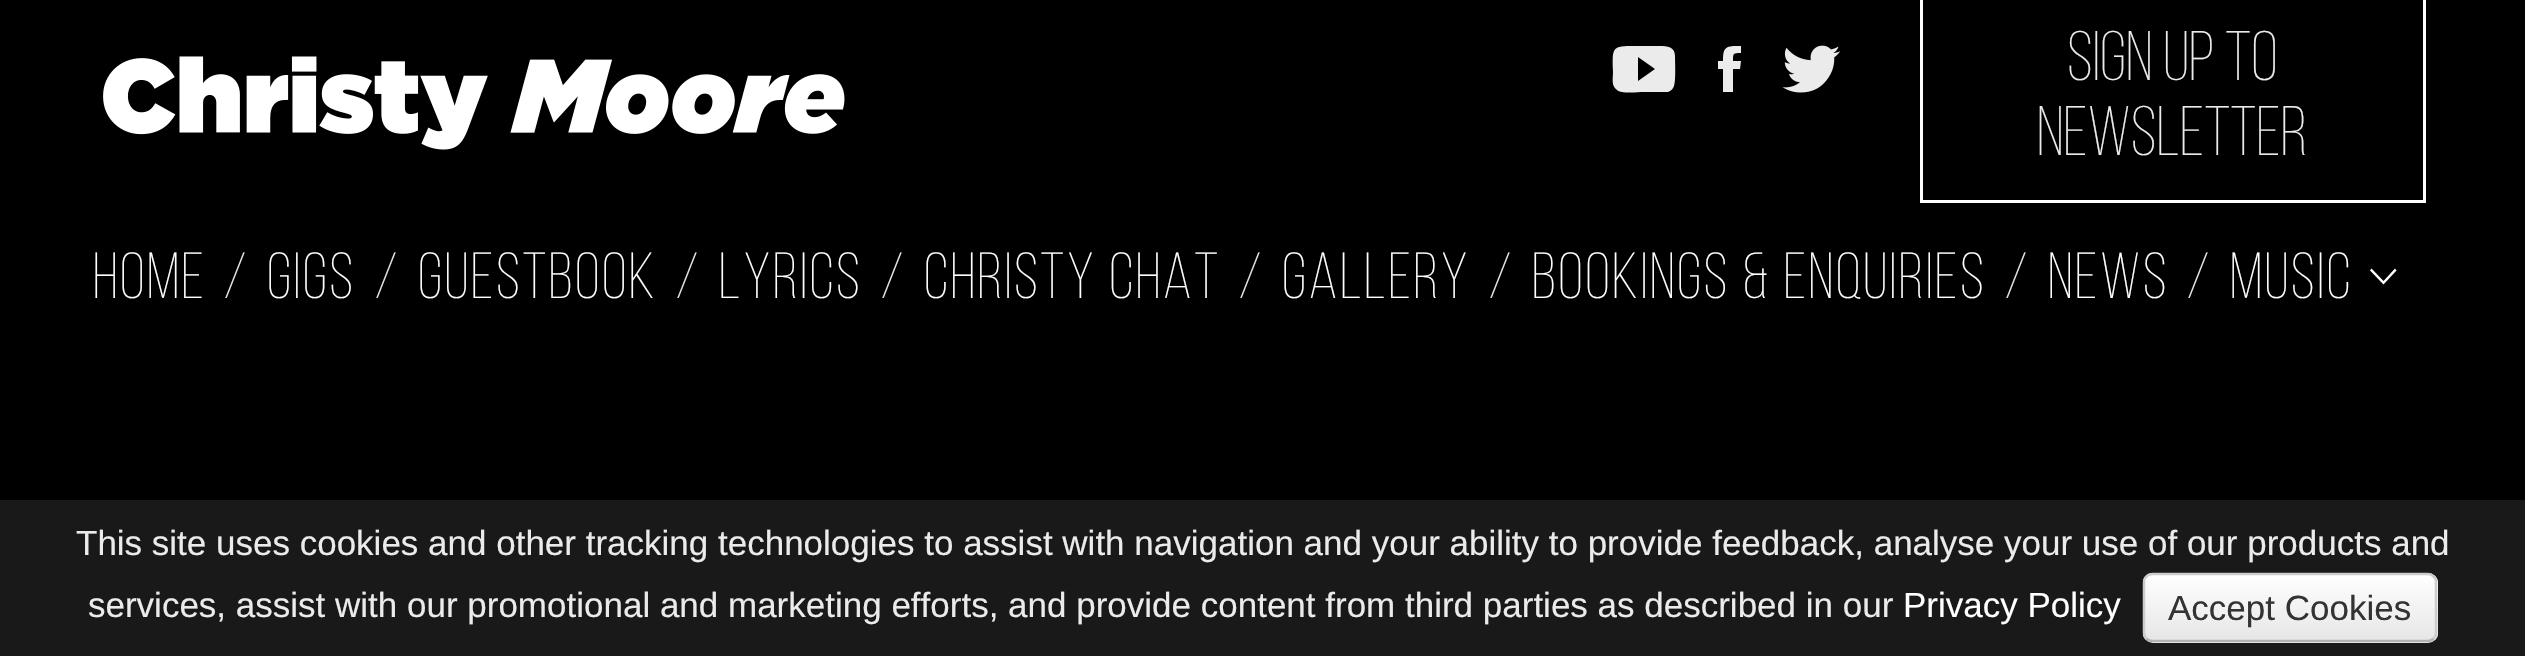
void draw(SkCanvas* canvas) {
    SkPaint paint;
    paint.setAntiAlias(true);
    auto face = [&](const char* family, int weight, float size, bool italic = false) {
        SkFontStyle style(weight, SkFontStyle::kNormal_Width,
            italic ? SkFontStyle::kItalic_Slant : SkFontStyle::kUpright_Slant);
        SkFont result(fontMgr->matchFamilyStyle(family, style), size);
        result.setSubpixel(true);
        return result;
    };
    auto write = [&](const char* s, float x, float y, const SkFont& font, SkColor color) {
        SkPaint ink(SkColor4f::FromColor(color));
        ink.setAntiAlias(true);
        canvas->drawString(s, x, y, font, ink);
    };
    auto writeSpaced = [&](const char* s, float x, float y, const SkFont& font, const SkPaint& ink, float letter, float word) {
        std::vector<SkGlyphID> glyphs(font.countText(s, strlen(s), SkTextEncoding::kUTF8));
        std::vector<float> xs(glyphs.size());
        font.textToGlyphs(s, strlen(s), SkTextEncoding::kUTF8, glyphs);
        font.getXPos(glyphs, xs, x);
        float extra = 0;
        for (size_t i = 0; i < glyphs.size(); i++) {
            xs[i] += extra;
            extra += letter + word * (glyphs[i] == font.unicharToGlyph(' '));
        }
        canvas->drawTextBlob(SkTextBlob::MakeFromPosHGlyphs(glyphs, xs, y, font), 0, 0, ink);
    };
    auto block = [&](float x, float y, float w, float h, SkColor color) {
        SkPaint ink(SkColor4f::FromColor(color));
        ink.setAntiAlias(true);
        canvas->drawRect(SkRect::MakeXYWH(x, y, w, h), ink);
    };
    auto card = [&](float x, float y, float w, float h, float radius, SkColor color) {
        SkPaint ink(SkColor4f::FromColor(color));
        ink.setAntiAlias(true);
        canvas->drawRoundRect(SkRect::MakeXYWH(x, y, w, h), radius, radius, ink);
    };
    auto paste = [&](const char* path, float x, float y, float w, float h) {
        auto image = SkImages::DeferredFromEncodedData(SkData::MakeFromFileName(path));
        canvas->drawImageRect(image, SkRect::MakeXYWH(x, y, w, h), SkSamplingOptions());
    };
    canvas->clear(SK_ColorBLACK);
    paste("pic1.png", 103, 56, 742, 94);
    paint.setColor(SkColorSetRGB(235, 235, 235));
    canvas->drawPath(SkPathBuilder().moveTo(1675, 56).cubicTo(1675, 63, 1676, 80, 1674, 86).cubicTo(1673, 89, 1671, 91, 1668, 92).lineTo(1644, 92).cubicTo(1638, 92, 1621, 94, 1617, 90).cubicTo(1611, 86, 1613, 78, 1613, 72).cubicTo(1612, 45, 1612, 46, 1640, 46).lineTo(1656, 46).cubicTo(1664, 46, 1675, 45, 1675, 56).close().moveTo(1638, 81).lineTo(1655, 69).lineTo(1638, 57).close().detach(), paint);
    canvas->drawPath(SkPathBuilder().moveTo(1733, 61).lineTo(1741, 61).lineTo(1740, 69).lineTo(1733, 69).lineTo(1733, 92).lineTo(1723, 92).lineTo(1723, 69).lineTo(1718, 69).lineTo(1718, 61).lineTo(1723, 61).cubicTo(1723, 46, 1726, 46, 1741, 46).lineTo(1741, 53).cubicTo(1733, 53, 1733, 53, 1733, 61).close().detach(), paint);
    paste("pic2.png", 1782, 45, 58, 48);
    block(2423, 0, 3, 203, SK_ColorWHITE);
    block(1920, 200, 505, 3, SK_ColorWHITE);
    block(1920, 0, 3, 203, SK_ColorWHITE);
    auto kFont1 = face("Bebas Neue", 300, 70);
    write("SIGN UP TO", 2067, 80, kFont1, SkColorSetRGB(235, 235, 235));
    write("NEWSLETTER", 2037, 155, kFont1, SkColorSetRGB(235, 235, 235));
    auto kFont2 = face("Bebas Neue", 300, 65);
    paint.setColor(SK_ColorWHITE);
    writeSpaced("Home", 93, 298, kFont2, paint, 2.5f, 0);
    paint.setColor(SkColorSetRGB(235, 235, 235));
    writeSpaced("/", 223, 298, kFont2, paint, 2.5f, 0);
    paint.setColor(SK_ColorWHITE);
    writeSpaced("Gigs", 267, 298, kFont2, paint, 2.5f, 0);
    paint.setColor(SkColorSetRGB(235, 235, 235));
    writeSpaced("/", 374, 298, kFont2, paint, 2.5f, 0);
    paint.setColor(SK_ColorWHITE);
    writeSpaced("Guestbook", 418, 298, kFont2, paint, 2.5f, 0);
    paint.setColor(SkColorSetRGB(235, 235, 235));
    writeSpaced("/", 675, 298, kFont2, paint, 2.5f, 0);
    paint.setColor(SK_ColorWHITE);
    writeSpaced("Lyrics", 719, 298, kFont2, paint, 2.5f, 0);
    paint.setColor(SkColorSetRGB(235, 235, 235));
    writeSpaced("/", 880, 298, kFont2, paint, 2.5f, 0);
    paint.setColor(SK_ColorWHITE);
    writeSpaced("Christy Chat", 924, 298, kFont2, paint, 2.5f, 0);
    paint.setColor(SkColorSetRGB(235, 235, 235));
    writeSpaced("/", 1238, 298, kFont2, paint, 2.5f, 0);
    paint.setColor(SK_ColorWHITE);
    writeSpaced("Gallery", 1282, 298, kFont2, paint, 2.5f, 0);
    paint.setColor(SkColorSetRGB(235, 235, 235));
    writeSpaced("/", 1488, 298, kFont2, paint, 2.5f, 0);
    paint.setColor(SK_ColorWHITE);
    writeSpaced("Bookings & Enquiries", 1532, 298, kFont2, paint, 2.5f, 0);
    paint.setColor(SkColorSetRGB(235, 235, 235));
    writeSpaced("/", 2004, 298, kFont2, paint, 2.5f, 0);
    paint.setColor(SK_ColorWHITE);
    writeSpaced("News", 2048, 298, kFont2, paint, 2.5f, 0);
    paint.setColor(SkColorSetRGB(235, 235, 235));
    writeSpaced("/", 2186, 298, kFont2, paint, 2.5f, 0);
    paint.setColor(SK_ColorWHITE);
    writeSpaced("Music", 2230, 298, kFont2, paint, 2.5f, 0);
    canvas->drawPath(SkPathBuilder().moveTo(2395, 268.5f).lineTo(2396.5f, 270.5f).lineTo(2383.5f, 284.5f).lineTo(2370, 270.5f).lineTo(2371.5f, 268.5f).lineTo(2383.5f, 281).close().detach(), paint);
    block(0, 500, 2525, 156, SkColorSetRGB(25, 25, 25));
    auto kFont3 = face("Liberation Sans", 400, 35);
    write("This site uses cookies and other tracking technologies to assist with navigation and your ability to provide feedback, analyse your use of our products and", 76, 555, kFont3, SkColorSetRGB(235, 235, 235));
    write("services, assist with our promotional and marketing efforts, and provide content from third parties as described in our", 88, 617, kFont3, SkColorSetRGB(235, 235, 235));
    write("Privacy Policy", 1903, 617, kFont3, SK_ColorWHITE);
    card(2143, 573, 295, 70, 10, SkColorSetRGB(245, 245, 245));
    canvas->save();
    canvas->clipPath(SkPathBuilder().moveTo(2153, 573).lineTo(2428, 573).cubicTo(2433.5f, 573, 2438, 577.5f, 2438, 583).lineTo(2438, 633).cubicTo(2438, 638.5f, 2433.5f, 643, 2428, 643).lineTo(2153, 643).cubicTo(2147.5f, 643, 2143, 638.5f, 2143, 633).lineTo(2143, 583).cubicTo(2143, 577.5f, 2147.5f, 573, 2153, 573).close().detach(), true);
    {
        const SkColor colors[] = {SK_ColorWHITE, SkColorSetRGB(230, 230, 230)};
        const float stops[] = {0, 1};
        const SkPoint ends[] = {{2290, 575}, {2290, 640}};
        paint.setShader(SkGradientShader::MakeLinear(ends, colors, stops, 2, SkTileMode::kClamp));
        paint.setAlpha(255);
    }
    canvas->drawRect(SkRect::MakeXYWH(2143, 575, 295, 65), paint);
    canvas->restore();
    paint.setStyle(SkPaint::kStroke_Style);
    paint.setStrokeWidth(2.5f);
    paint.setShader(nullptr);
    paint.setColor(SkColorSetRGB(179, 179, 179));
    canvas->drawPath(SkPathBuilder().moveTo(2433.5f, 638.5f).cubicTo(2432, 640.5f, 2430, 641, 2427.5f, 641).lineTo(2152.5f, 641).cubicTo(2150, 641, 2148, 640.5f, 2146.5f, 638.5f).detach(), paint);
    paint.setColor(SkColorSetRGB(204, 204, 204));
    canvas->drawPath(SkPathBuilder().moveTo(2146.5f, 638.5f).cubicTo(2144.5f, 637, 2144, 635, 2144, 632.5f).lineTo(2144, 582.5f).cubicTo(2144, 580, 2144.5f, 578, 2146.5f, 576.5f).cubicTo(2148, 574.5f, 2150, 574, 2152.5f, 574).lineTo(2427.5f, 574).cubicTo(2430, 574, 2432, 574.5f, 2433.5f, 576.5f).cubicTo(2435.5f, 578, 2436, 580, 2436, 582.5f).lineTo(2436, 632.5f).cubicTo(2436, 635, 2435.5f, 637, 2433.5f, 638.5f).detach(), paint);
    write("Accept Cookies", 2168, 620, kFont3, SkColorSetRGB(51, 51, 51));
}
